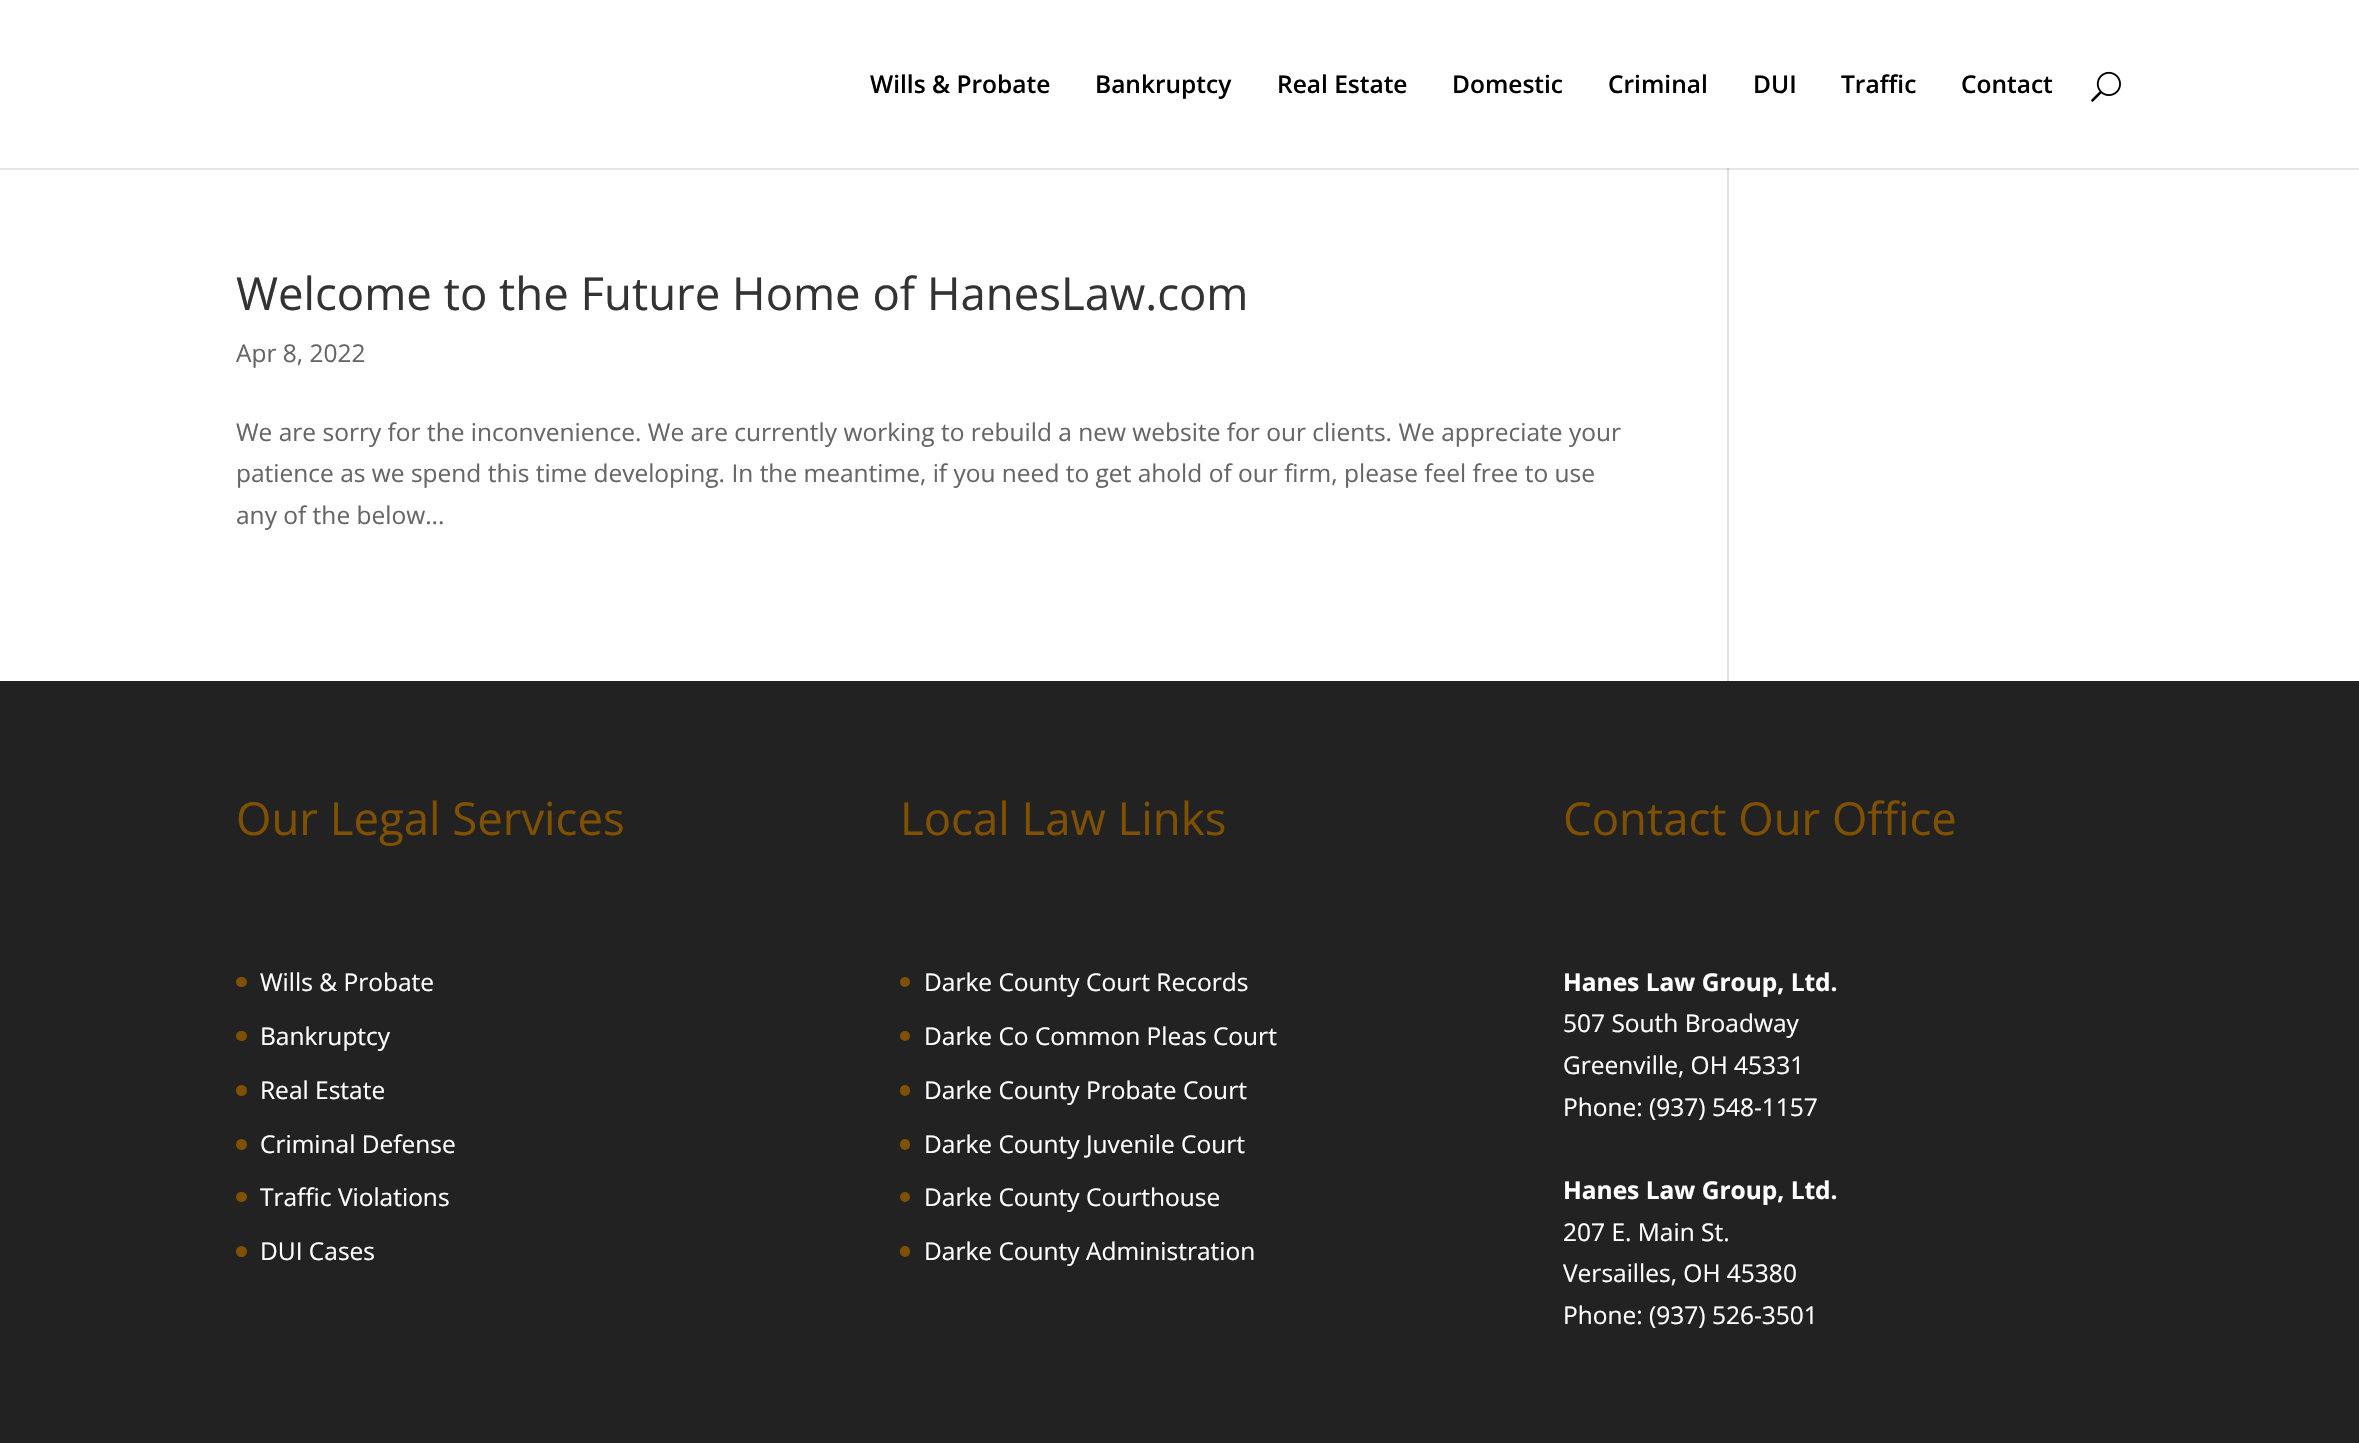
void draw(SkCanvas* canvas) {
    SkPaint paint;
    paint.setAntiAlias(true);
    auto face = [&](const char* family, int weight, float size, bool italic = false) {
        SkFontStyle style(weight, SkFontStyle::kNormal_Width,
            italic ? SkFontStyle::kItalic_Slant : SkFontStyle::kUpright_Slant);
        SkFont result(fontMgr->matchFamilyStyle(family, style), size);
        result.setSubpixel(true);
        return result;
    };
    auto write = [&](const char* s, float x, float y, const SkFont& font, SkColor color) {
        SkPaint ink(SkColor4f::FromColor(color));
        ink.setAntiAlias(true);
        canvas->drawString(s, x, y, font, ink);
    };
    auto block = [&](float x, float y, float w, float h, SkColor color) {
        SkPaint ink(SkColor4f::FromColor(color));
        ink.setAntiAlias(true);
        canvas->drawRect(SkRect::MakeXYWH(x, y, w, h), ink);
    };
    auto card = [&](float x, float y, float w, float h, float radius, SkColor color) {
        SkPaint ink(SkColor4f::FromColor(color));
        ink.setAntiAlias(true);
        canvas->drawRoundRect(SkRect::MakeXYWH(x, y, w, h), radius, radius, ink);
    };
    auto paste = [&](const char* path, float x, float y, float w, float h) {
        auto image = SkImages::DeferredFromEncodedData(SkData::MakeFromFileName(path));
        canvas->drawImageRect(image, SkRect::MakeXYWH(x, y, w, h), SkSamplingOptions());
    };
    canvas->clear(SK_ColorWHITE);
    auto kFont1 = face("Open Sans", 600, 24.5f);
    write("Wills & Probate", 870, 93, kFont1, SK_ColorBLACK);
    write("Bankruptcy", 1095, 93, kFont1, SK_ColorBLACK);
    write("Real Estate", 1277, 93, kFont1, SK_ColorBLACK);
    write("Domestic", 1452, 93, kFont1, SK_ColorBLACK);
    write("Criminal", 1608, 93, kFont1, SK_ColorBLACK);
    write("DUI", 1753, 93, kFont1, SK_ColorBLACK);
    write("Traffic", 1841, 93, kFont1, SK_ColorBLACK);
    write("Contact", 1961, 93, kFont1, SK_ColorBLACK);
    paste("pic1.png", 2091, 71, 30, 31);
    block(0, 168, 2359, 2, SkColorSetRGB(230, 230, 230));
    auto kFont2 = face("Open Sans", 400, 45.5f);
    write("Welcome to the Future Home of HanesLaw.com", 236, 310, kFont2, SkColorSetRGB(51, 51, 51));
    auto kFont3 = face("Open Sans", 400, 24.5f);
    write("Apr 8, 2022", 236, 362, kFont3, SkColorSetRGB(102, 102, 102));
    write("We are sorry for the inconvenience. We are currently working to rebuild a new website for our clients. We appreciate your", 236, 441, kFont3, SkColorSetRGB(102, 102, 102));
    write("patience as we spend this time developing. In the meantime, if you need to get ahold of our firm, please feel free to use", 236, 482, kFont3, SkColorSetRGB(102, 102, 102));
    write("any of the below...", 236, 524, kFont3, SkColorSetRGB(102, 102, 102));
    block(1727, 168, 2, 513, SkColorSetRGB(226, 226, 226));
    block(1727, 168, 2, 2, SkColorSetRGB(203, 203, 203));
    block(0, 681, 2359, 762, SkColorSetRGB(34, 34, 34));
    write("Our Legal Services", 236, 835, kFont2, SkColorSetRGB(127, 80, 0));
    card(236, 977, 11, 10, 5, SkColorSetRGB(127, 80, 0));
    write("Wills & Probate", 260, 991, kFont3, SK_ColorWHITE);
    card(236, 1031, 11, 10, 5, SkColorSetRGB(127, 80, 0));
    write("Bankruptcy", 260, 1045, kFont3, SK_ColorWHITE);
    paint.setColor(SkColorSetRGB(127, 80, 0));
    canvas->drawCircle(241.5f, 1090.5f, 5.5f, paint);
    write("Real Estate", 260, 1099, kFont3, SK_ColorWHITE);
    canvas->drawCircle(241.5f, 1144.5f, 5.5f, paint);
    write("Criminal Defense", 260, 1153, kFont3, SK_ColorWHITE);
    card(236, 1192, 11, 10, 5, SkColorSetRGB(127, 80, 0));
    write("Traffic Violations", 260, 1206, kFont3, SK_ColorWHITE);
    canvas->drawCircle(241.5f, 1251.5f, 5.5f, paint);
    write("DUI Cases", 260, 1260, kFont3, SK_ColorWHITE);
    write("Local Law Links", 900, 835, kFont2, SkColorSetRGB(127, 80, 0));
    canvas->drawCircle(905, 982, 5, paint);
    write("Darke County Court Records", 924, 991, kFont3, SK_ColorWHITE);
    canvas->drawCircle(905, 1036, 5, paint);
    write("Darke Co Common Pleas Court", 924, 1045, kFont3, SK_ColorWHITE);
    card(900, 1085, 10, 11, 5, SkColorSetRGB(127, 80, 0));
    write("Darke County Probate Court", 924, 1099, kFont3, SK_ColorWHITE);
    card(900, 1139, 10, 11, 5, SkColorSetRGB(127, 80, 0));
    write("Darke County Juvenile Court", 924, 1153, kFont3, SK_ColorWHITE);
    canvas->drawCircle(905, 1197, 5, paint);
    write("Darke County Courthouse", 924, 1206, kFont3, SK_ColorWHITE);
    card(900, 1246, 10, 11, 5, SkColorSetRGB(127, 80, 0));
    write("Darke County Administration", 924, 1260, kFont3, SK_ColorWHITE);
    write("Contact Our Office", 1563, 835, kFont2, SkColorSetRGB(127, 80, 0));
    auto kFont4 = face("Open Sans", 700, 24.5f);
    write("Hanes Law Group, Ltd.", 1563, 991, kFont4, SK_ColorWHITE);
    write("507 South Broadway", 1563, 1032, kFont3, SK_ColorWHITE);
    write("Greenville, OH 45331", 1563, 1074, kFont3, SK_ColorWHITE);
    write("Phone: (937) 548-1157", 1563, 1116, kFont3, SK_ColorWHITE);
    write("Hanes Law Group, Ltd.", 1563, 1199, kFont4, SK_ColorWHITE);
    write("207 E. Main St.", 1563, 1241, kFont3, SK_ColorWHITE);
    write("Versailles, OH 45380", 1563, 1282, kFont3, SK_ColorWHITE);
    write("Phone: (937) 526-3501", 1563, 1324, kFont3, SK_ColorWHITE);
}
